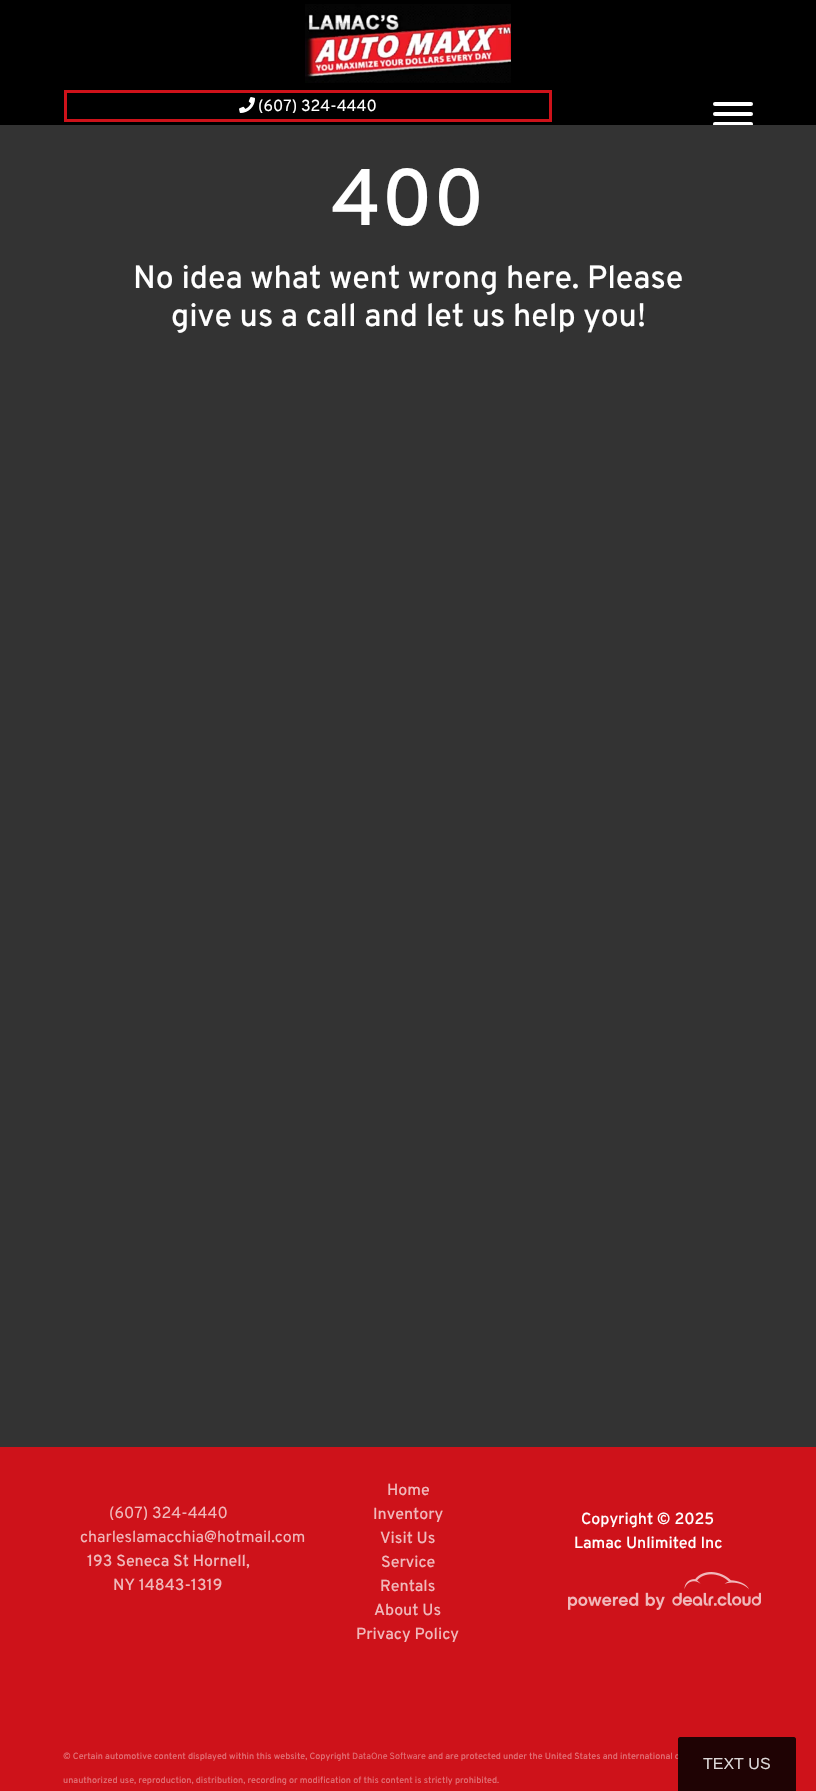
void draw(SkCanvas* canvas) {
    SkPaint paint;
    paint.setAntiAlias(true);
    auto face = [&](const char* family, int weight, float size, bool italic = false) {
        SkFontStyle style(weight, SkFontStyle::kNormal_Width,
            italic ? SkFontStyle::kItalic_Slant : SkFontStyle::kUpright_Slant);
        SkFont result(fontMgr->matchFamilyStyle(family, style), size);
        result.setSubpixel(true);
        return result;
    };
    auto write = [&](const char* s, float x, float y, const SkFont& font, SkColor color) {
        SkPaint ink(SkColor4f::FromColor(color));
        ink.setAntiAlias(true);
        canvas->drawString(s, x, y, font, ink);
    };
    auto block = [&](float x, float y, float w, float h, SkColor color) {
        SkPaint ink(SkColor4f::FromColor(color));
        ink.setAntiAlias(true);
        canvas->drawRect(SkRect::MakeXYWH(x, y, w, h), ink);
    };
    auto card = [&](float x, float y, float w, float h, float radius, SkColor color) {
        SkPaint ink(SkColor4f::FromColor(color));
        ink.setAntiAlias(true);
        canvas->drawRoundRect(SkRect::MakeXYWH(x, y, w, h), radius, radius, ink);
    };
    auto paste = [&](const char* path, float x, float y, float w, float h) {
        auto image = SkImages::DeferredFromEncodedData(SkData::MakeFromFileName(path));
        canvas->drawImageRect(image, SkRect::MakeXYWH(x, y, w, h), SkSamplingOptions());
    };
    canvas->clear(SkColorSetRGB(51, 51, 51));
    block(0, 0, 816, 125, SK_ColorBLACK);
    paste("pic1.png", 305, 4, 206, 79);
    paint.setStyle(SkPaint::kStroke_Style);
    paint.setStrokeWidth(3);
    paint.setColor(SkColorSetRGB(206, 18, 26));
    canvas->drawRect(SkRect::MakeXYWH(65.5f, 91.5f, 485, 29), paint);
    paste("pic2.png", 239, 97, 16, 16);
    auto kFont1 = face("Overpass", 400, 16);
    write("(607) 324-4440", 258, 111, kFont1, SK_ColorWHITE);
    card(713, 112, 40, 4, 2, SK_ColorWHITE);
    card(713, 102, 40, 4, 2, SK_ColorWHITE);
    canvas->save();
    canvas->clipRect(SkRect::MakeXYWH(48, 87, 720, 38));
    card(713, 122, 40, 4, 2, SK_ColorWHITE);
    canvas->restore();
    auto kFont2 = face("Overpass", 500, 80);
    write("400", 331, 225, kFont2, SK_ColorWHITE);
    auto kFont3 = face("Overpass", 500, 32);
    write("No idea what went wrong here. Please", 133, 288, kFont3, SK_ColorWHITE);
    write("give us a call and let us help you!", 171, 326, kFont3, SK_ColorWHITE);
    block(0, 1447, 816, 344, SkColorSetRGB(206, 18, 26));
    write("(607) 324-4440", 109, 1518, kFont1, SkColorSetRGB(240, 184, 186));
    write("charleslamacchia@hotmail.com", 80, 1542, kFont1, SkColorSetRGB(240, 184, 186));
    auto kFont4 = face("Overpass", 500, 16);
    write("193 Seneca St Hornell,", 87, 1566, kFont4, SkColorSetRGB(240, 184, 186));
    write("NY 14843-1319", 113, 1590, kFont4, SkColorSetRGB(240, 184, 186));
    write("Home", 387, 1495, kFont4, SkColorSetRGB(240, 184, 186));
    write("Inventory", 373, 1519, kFont4, SkColorSetRGB(240, 184, 186));
    write("Visit Us", 380, 1543, kFont4, SkColorSetRGB(240, 184, 186));
    write("Service", 381, 1567, kFont4, SkColorSetRGB(240, 184, 186));
    write("Rentals", 380, 1591, kFont4, SkColorSetRGB(240, 184, 186));
    write("About Us", 374, 1615, kFont4, SkColorSetRGB(240, 184, 186));
    write("Privacy Policy", 356, 1639, kFont4, SkColorSetRGB(240, 184, 186));
    write("Copyright © 2025", 581, 1524, kFont4, SK_ColorWHITE);
    write("Lamac Unlimited Inc", 574, 1548, kFont4, SK_ColorWHITE);
    paste("pic3.png", 568, 1572, 193, 38);
    auto kFont5 = face("Overpass", 500, 9);
    write("© Certain automotive content displayed within this website, Copyright", 63, 1759, kFont5, SkColorSetRGB(226, 113, 118));
    auto kFont6 = face("Overpass", 400, 9);
    write("DataOne Software", 352, 1759, kFont6, SkColorSetRGB(226, 113, 118));
    write("and are protected under the United States and international c", 428, 1759, kFont5, SkColorSetRGB(226, 113, 118));
    write("unauthorized use, reproduction, distribution, recording or modification of this content is strictly prohibited.", 63, 1783, kFont5, SkColorSetRGB(226, 113, 118));
    paint.setStyle(SkPaint::kFill_Style);
    paint.setColor(SkColorSetARGB(217, 0, 0, 0));
    canvas->drawPath(SkPathBuilder().moveTo(680, 1737).lineTo(794, 1737).cubicTo(795, 1737, 796, 1738, 796, 1739).lineTo(796, 1791).lineTo(678, 1791).lineTo(678, 1739).cubicTo(678, 1738, 679, 1737, 680, 1737).close().detach(), paint);
    auto kFont7 = face("Liberation Sans", 400, 16);
    write("TEXT US", 703, 1769, kFont7, SkColorSetRGB(221, 217, 217));
}
